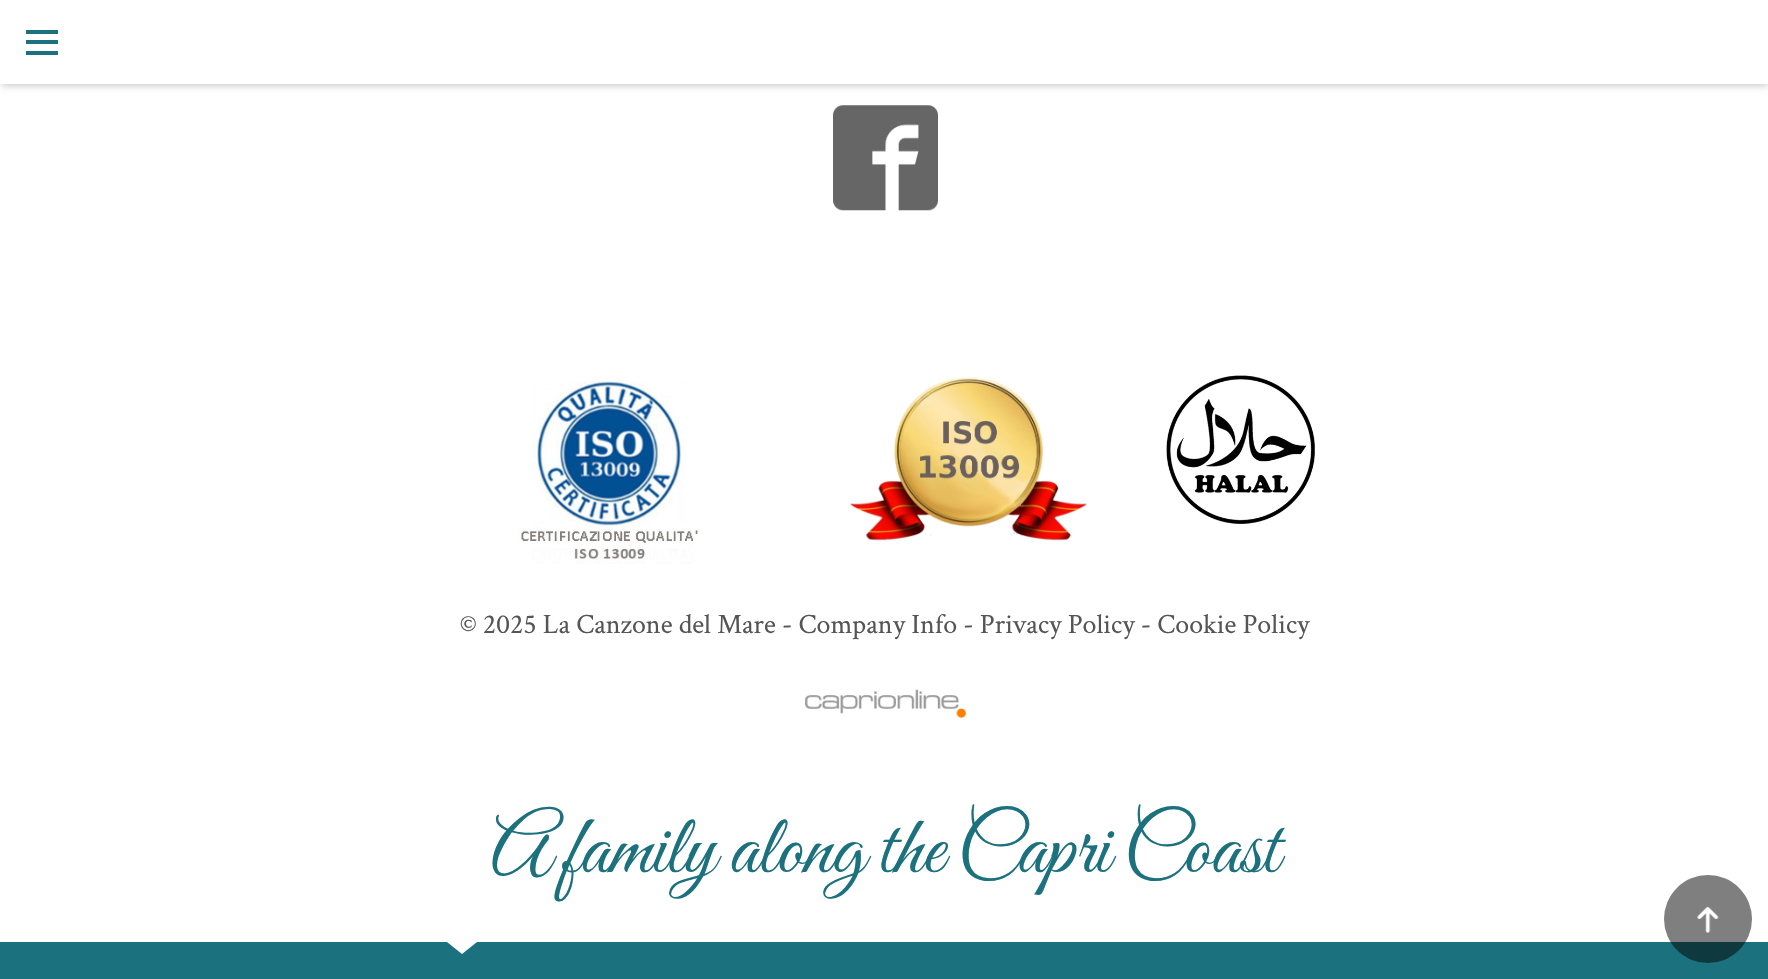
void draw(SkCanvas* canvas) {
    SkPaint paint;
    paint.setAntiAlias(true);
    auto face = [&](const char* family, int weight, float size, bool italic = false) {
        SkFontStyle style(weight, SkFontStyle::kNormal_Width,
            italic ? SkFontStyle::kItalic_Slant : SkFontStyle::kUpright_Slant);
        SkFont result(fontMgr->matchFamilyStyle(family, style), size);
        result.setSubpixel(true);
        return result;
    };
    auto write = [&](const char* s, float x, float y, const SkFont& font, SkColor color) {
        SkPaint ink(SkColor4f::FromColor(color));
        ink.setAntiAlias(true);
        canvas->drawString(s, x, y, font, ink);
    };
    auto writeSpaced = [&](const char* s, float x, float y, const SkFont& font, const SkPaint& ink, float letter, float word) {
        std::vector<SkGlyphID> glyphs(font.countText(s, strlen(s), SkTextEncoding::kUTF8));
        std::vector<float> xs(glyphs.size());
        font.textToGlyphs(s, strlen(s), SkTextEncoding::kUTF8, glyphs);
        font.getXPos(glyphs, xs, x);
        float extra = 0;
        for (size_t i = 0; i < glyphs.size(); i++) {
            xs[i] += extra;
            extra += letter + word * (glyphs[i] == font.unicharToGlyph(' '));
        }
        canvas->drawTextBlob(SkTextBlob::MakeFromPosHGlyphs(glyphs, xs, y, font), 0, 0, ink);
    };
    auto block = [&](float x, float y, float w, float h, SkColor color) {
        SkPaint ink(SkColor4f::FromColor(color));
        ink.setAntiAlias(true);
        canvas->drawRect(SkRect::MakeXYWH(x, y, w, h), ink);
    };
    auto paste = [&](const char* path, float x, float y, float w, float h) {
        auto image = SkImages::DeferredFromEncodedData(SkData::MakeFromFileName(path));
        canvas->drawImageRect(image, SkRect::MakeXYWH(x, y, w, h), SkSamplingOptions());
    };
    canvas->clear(SK_ColorWHITE);
    paint.setColor(SkColorSetARGB(51, 0, 0, 0));
    paint.setMaskFilter(SkMaskFilter::MakeBlur(kNormal_SkBlurStyle, 3.5f));
    canvas->drawRect(SkRect::MakeXYWH(2, 5, 1766, 81), paint);
    paint.setMaskFilter(nullptr);
    block(0, 0, 1768, 84, SK_ColorWHITE);
    block(26, 40, 32, 4, SkColorSetRGB(27, 113, 125));
    block(26, 30, 32, 4, SkColorSetRGB(27, 113, 125));
    block(26, 51, 32, 4, SkColorSetRGB(27, 113, 125));
    paste("pic1.png", 833, 105, 105, 106);
    paste("pic2.png", 518, 379, 180, 185);
    paste("pic3.png", 850, 377, 237, 164);
    paste("pic4.png", 1166, 375, 149, 149);
    auto kFont1 = face("Crimson Text", 400, 28);
    write("© 2025 La Canzone del Mare - Company Info - Privacy Policy - Cookie Policy", 460, 633, kFont1, SkColorSetRGB(85, 85, 85));
    paste("pic5.png", 805, 689, 161, 29);
    auto kFont2 = face("Great Vibes", 400, 84);
    paint.setColor(SkColorSetRGB(27, 113, 125));
    writeSpaced("A family along the Capri Coast", 491, 872, kFont2, paint, -0.5f, 0);
    block(0, 942, 1768, 37, SkColorSetRGB(27, 113, 125));
    paint.setColor(SK_ColorWHITE);
    canvas->drawPath(SkPathBuilder().moveTo(444.5f, 940).lineTo(479.5f, 940).lineTo(462, 954).close().detach(), paint);
    paint.setColor(SkColorSetARGB(128, 0, 0, 0));
    canvas->drawCircle(1708, 919, 44, paint);
    paste("pic6.png", 1697, 907, 22, 26);
}
